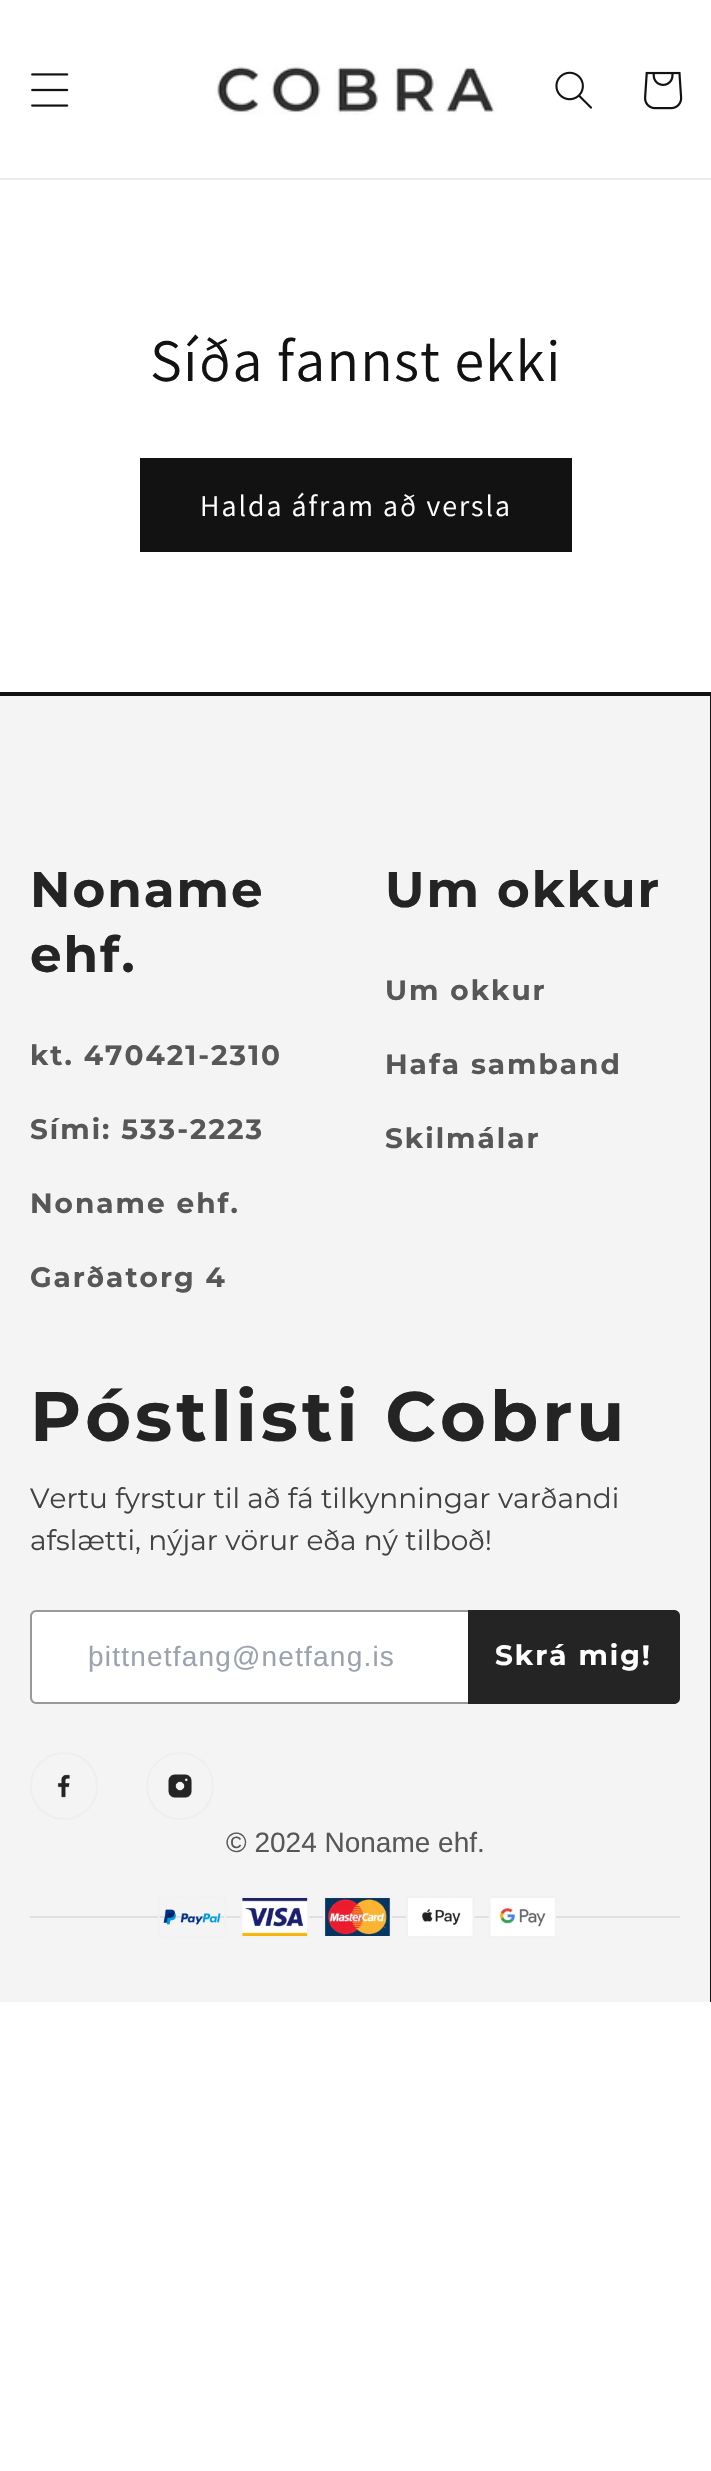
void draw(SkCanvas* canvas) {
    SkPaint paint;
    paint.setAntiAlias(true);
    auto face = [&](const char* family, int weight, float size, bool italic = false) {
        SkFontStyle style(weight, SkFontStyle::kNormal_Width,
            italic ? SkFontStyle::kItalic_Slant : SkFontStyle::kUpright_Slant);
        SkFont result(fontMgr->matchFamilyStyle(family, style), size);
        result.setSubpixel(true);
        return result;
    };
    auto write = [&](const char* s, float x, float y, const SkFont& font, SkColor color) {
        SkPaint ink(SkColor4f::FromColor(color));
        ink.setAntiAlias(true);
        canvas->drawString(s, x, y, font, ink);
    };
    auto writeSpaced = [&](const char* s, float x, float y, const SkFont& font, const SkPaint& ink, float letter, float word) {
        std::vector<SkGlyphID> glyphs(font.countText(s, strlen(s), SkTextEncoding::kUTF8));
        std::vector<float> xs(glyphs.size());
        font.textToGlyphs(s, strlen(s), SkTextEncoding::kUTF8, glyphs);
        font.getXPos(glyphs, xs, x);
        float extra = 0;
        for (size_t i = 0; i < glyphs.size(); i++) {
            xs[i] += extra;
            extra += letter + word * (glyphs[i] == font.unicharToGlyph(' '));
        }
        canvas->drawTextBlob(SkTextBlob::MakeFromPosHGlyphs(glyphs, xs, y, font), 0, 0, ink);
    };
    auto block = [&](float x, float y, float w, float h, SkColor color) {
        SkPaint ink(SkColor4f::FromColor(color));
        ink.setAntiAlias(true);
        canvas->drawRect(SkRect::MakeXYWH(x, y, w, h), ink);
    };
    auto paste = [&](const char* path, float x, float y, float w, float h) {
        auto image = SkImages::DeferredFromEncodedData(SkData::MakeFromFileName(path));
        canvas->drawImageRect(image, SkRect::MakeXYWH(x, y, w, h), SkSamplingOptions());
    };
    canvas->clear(SK_ColorWHITE);
    block(0, 178, 711, 2, SkColorSetRGB(236, 236, 236));
    paste("pic1.png", 31, 73, 38, 34);
    paste("pic2.png", 215, 63, 282, 52);
    paste("pic3.png", 555, 71, 37, 38);
    paste("pic4.png", 644, 71, 39, 39);
    auto kFont1 = face("Assistant", 400, 60);
    paint.setColor(SkColorSetRGB(18, 18, 18));
    writeSpaced("Síða fannst ekki", 150, 381, kFont1, paint, 1.2f, 0);
    block(140, 458, 432, 94, SkColorSetRGB(18, 18, 18));
    auto kFont2 = face("Assistant", 400, 30);
    paint.setColor(SK_ColorWHITE);
    writeSpaced("Halda áfram að versla", 200, 516, kFont2, paint, 2, 0);
    block(0, 696, 710, 1306, SkColorSetRGB(244, 244, 244));
    block(0, 692, 711, 4, SkColorSetRGB(18, 18, 18));
    block(710, 692, 1, 1310, SkColorSetRGB(18, 18, 18));
    auto kFont3 = face("Montserrat", 700, 50);
    paint.setColor(SkColorSetRGB(36, 36, 36));
    writeSpaced("Noname", 30, 907, kFont3, paint, 2, 0);
    writeSpaced("ehf.", 30, 972, kFont3, paint, 2, 0);
    auto kFont4 = face("Montserrat", 700, 28);
    paint.setColor(SkColorSetRGB(87, 87, 87));
    writeSpaced("kt. 470421-2310", 30, 1065, kFont4, paint, 2, 0);
    writeSpaced("Sími: 533-2223", 30, 1139, kFont4, paint, 2, 0);
    writeSpaced("Noname ehf.", 30, 1213, kFont4, paint, 2, 0);
    writeSpaced("Garðatorg 4", 30, 1287, kFont4, paint, 2, 0);
    paint.setColor(SkColorSetRGB(36, 36, 36));
    writeSpaced("Um okkur", 385, 907, kFont3, paint, 2, 0);
    paint.setColor(SkColorSetRGB(87, 87, 87));
    writeSpaced("Um okkur", 385, 1000, kFont4, paint, 2, 0);
    writeSpaced("Hafa samband", 385, 1074, kFont4, paint, 2, 0);
    writeSpaced("Skilmálar", 385, 1148, kFont4, paint, 2, 0);
    auto kFont5 = face("Montserrat", 700, 70);
    paint.setColor(SkColorSetRGB(36, 36, 36));
    writeSpaced("Póstlisti Cobru", 30, 1441, kFont5, paint, 4, 0);
    auto kFont6 = face("Montserrat", 400, 28);
    write("Vertu fyrstur til að fá tilkynningar varðandi", 30, 1508, kFont6, SkColorSetRGB(66, 66, 66));
    write("afslætti, nýjar vörur eða ný tilboð!", 30, 1550, kFont6, SkColorSetRGB(66, 66, 66));
    paint.setColor(SK_ColorWHITE);
    canvas->drawPath(SkPathBuilder().moveTo(36, 1612).lineTo(468, 1612).lineTo(468, 1702).lineTo(36, 1702).cubicTo(34, 1702, 32, 1700, 32, 1698).lineTo(32, 1616).cubicTo(32, 1614, 34, 1612, 36, 1612).close().detach(), paint);
    paint.setColor(SkColorSetRGB(153, 153, 153));
    canvas->drawPath(SkPathBuilder(SkPathFillType::kEvenOdd).moveTo(36, 1610).lineTo(468, 1610).lineTo(468, 1704).lineTo(36, 1704).cubicTo(33, 1704, 30, 1701, 30, 1698).lineTo(30, 1616).cubicTo(30, 1613, 33, 1610, 36, 1610).close().moveTo(36, 1612).lineTo(468, 1612).lineTo(468, 1702).lineTo(36, 1702).cubicTo(34, 1702, 32, 1700, 32, 1698).lineTo(32, 1616).cubicTo(32, 1614, 34, 1612, 36, 1612).close().detach(), paint);
    auto kFont7 = face("Liberation Sans", 400, 28);
    paint.setColor(SkColorSetRGB(156, 163, 175));
    writeSpaced("þittnetfang@netfang.is", 88, 1666, kFont7, paint, 1.2f, 0);
    paint.setColor(SkColorSetRGB(36, 36, 36));
    canvas->drawPath(SkPathBuilder().moveTo(468, 1610).lineTo(674, 1610).cubicTo(677.5f, 1610, 680, 1612.5f, 680, 1616).lineTo(680, 1698).cubicTo(680, 1701.5f, 677.5f, 1704, 674, 1704).lineTo(468, 1704).close().detach(), paint);
    paint.setColor(SK_ColorWHITE);
    writeSpaced("Skrá mig!", 495, 1665, kFont4, paint, 2, 0);
    paste("pic5.png", 30, 1752, 68, 68);
    paste("pic6.png", 146, 1752, 68, 68);
    write("© 2024 Noname ehf.", 226, 1852, kFont7, SkColorSetRGB(87, 87, 87));
    block(30, 1916, 650, 2, SkColorSetRGB(224, 224, 224));
    paste("pic7.png", 157, 1896, 399, 42);
}
